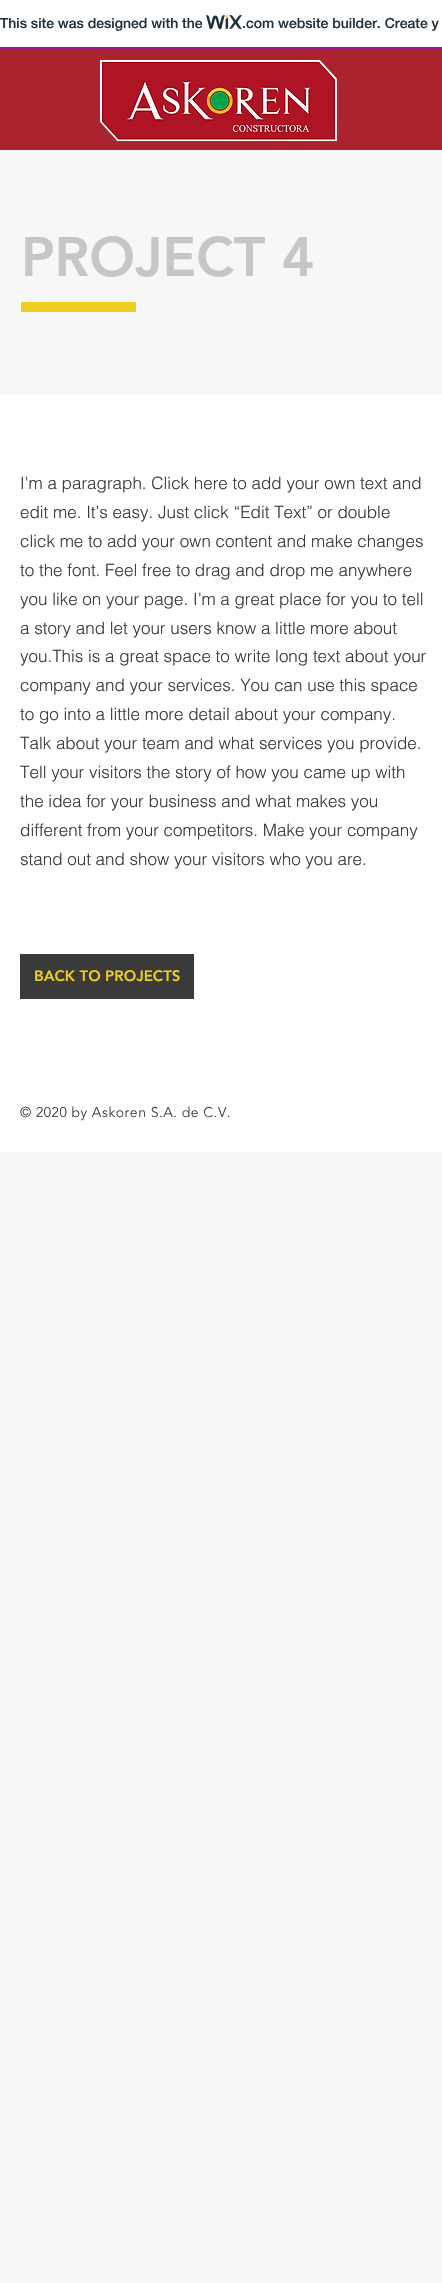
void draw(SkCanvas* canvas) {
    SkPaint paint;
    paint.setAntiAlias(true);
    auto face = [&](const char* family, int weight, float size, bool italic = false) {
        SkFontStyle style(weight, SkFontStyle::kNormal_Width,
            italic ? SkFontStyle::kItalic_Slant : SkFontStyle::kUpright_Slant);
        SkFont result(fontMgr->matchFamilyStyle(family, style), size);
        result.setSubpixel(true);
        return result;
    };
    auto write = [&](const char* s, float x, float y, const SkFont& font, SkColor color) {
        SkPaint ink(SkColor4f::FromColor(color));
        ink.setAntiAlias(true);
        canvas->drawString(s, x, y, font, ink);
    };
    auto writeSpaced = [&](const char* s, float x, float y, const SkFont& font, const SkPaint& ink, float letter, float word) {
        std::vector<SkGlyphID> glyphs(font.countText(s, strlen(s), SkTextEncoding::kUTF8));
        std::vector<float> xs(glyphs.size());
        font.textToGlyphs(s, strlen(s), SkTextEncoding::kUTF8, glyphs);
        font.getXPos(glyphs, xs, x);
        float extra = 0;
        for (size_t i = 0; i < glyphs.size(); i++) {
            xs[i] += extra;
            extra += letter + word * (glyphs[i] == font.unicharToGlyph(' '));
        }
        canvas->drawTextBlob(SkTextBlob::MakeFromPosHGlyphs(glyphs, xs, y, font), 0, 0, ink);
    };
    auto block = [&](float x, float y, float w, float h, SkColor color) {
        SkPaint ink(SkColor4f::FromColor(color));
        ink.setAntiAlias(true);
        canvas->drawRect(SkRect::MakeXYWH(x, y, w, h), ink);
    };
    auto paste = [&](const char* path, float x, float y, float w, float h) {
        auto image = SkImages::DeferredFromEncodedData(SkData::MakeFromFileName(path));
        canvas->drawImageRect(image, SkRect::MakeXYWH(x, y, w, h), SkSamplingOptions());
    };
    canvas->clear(SK_ColorWHITE);
    block(0, 47, 442, 3, SkColorSetRGB(160, 19, 142));
    auto kFont1 = face("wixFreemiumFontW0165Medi", 500, 14);
    write("This site was designed with the", 0, 28, kFont1, SkColorSetRGB(32, 48, 60));
    paste("pic1.png", 206, 15, 36, 15);
    write(".com website builder. Create y", 242, 28, kFont1, SkColorSetRGB(32, 48, 60));
    block(0, 150, 442, 2133, SkColorSetRGB(247, 247, 247));
    block(0, 50, 442, 100, SkColorSetRGB(170, 35, 47));
    paste("pic2.png", 100, 60, 237, 81);
    auto kFont2 = face("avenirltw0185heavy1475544", 900, 55);
    write("PROJECT 4", 21, 276, kFont2, SkColorSetRGB(198, 198, 198));
    block(21, 302, 115, 10, SkColorSetRGB(237, 205, 31));
    block(0, 395, 442, 757, SK_ColorWHITE);
    auto kFont3 = face("helvetica", 300, 17);
    write("I'm a paragraph. Click here to add your own text and", 20, 489, kFont3, SkColorSetRGB(59, 58, 58));
    write("edit me. It’s easy. Just click “Edit Text” or double", 20, 518, kFont3, SkColorSetRGB(59, 58, 58));
    write("click me to add your own content and make changes", 20, 547, kFont3, SkColorSetRGB(59, 58, 58));
    write("to the font. Feel free to drag and drop me anywhere", 20, 576, kFont3, SkColorSetRGB(59, 58, 58));
    write("you like on your page. I’m a great place for you to tell", 20, 605, kFont3, SkColorSetRGB(59, 58, 58));
    write("a story and let your users know a little more about", 20, 634, kFont3, SkColorSetRGB(59, 58, 58));
    write("you.This is a great space to write long text about your", 20, 662, kFont3, SkColorSetRGB(59, 58, 58));
    write("company and your services. You can use this space", 20, 691, kFont3, SkColorSetRGB(59, 58, 58));
    write("to go into a little more detail about your company.", 20, 720, kFont3, SkColorSetRGB(59, 58, 58));
    write("Talk about your team and what services you provide.", 20, 749, kFont3, SkColorSetRGB(59, 58, 58));
    write("Tell your visitors the story of how you came up with", 20, 778, kFont3, SkColorSetRGB(59, 58, 58));
    write("the idea for your business and what makes you", 20, 807, kFont3, SkColorSetRGB(59, 58, 58));
    write("different from your competitors. Make your company", 20, 836, kFont3, SkColorSetRGB(59, 58, 58));
    write("stand out and show your visitors who you are.", 20, 865, kFont3, SkColorSetRGB(59, 58, 58));
    block(20, 954, 174, 45, SkColorSetRGB(59, 58, 58));
    auto kFont4 = face("avenirltw0185heavy1475544", 900, 15);
    write("BACK TO PROJECTS", 34, 981, kFont4, SkColorSetRGB(237, 205, 31));
    auto kFont5 = face("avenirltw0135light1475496", 300, 14);
    paint.setColor(SkColorSetRGB(59, 58, 58));
    writeSpaced("© 2020 by Askoren S.A. de C.V.", 20, 1117, kFont5, paint, 0.55f, 0);
}
